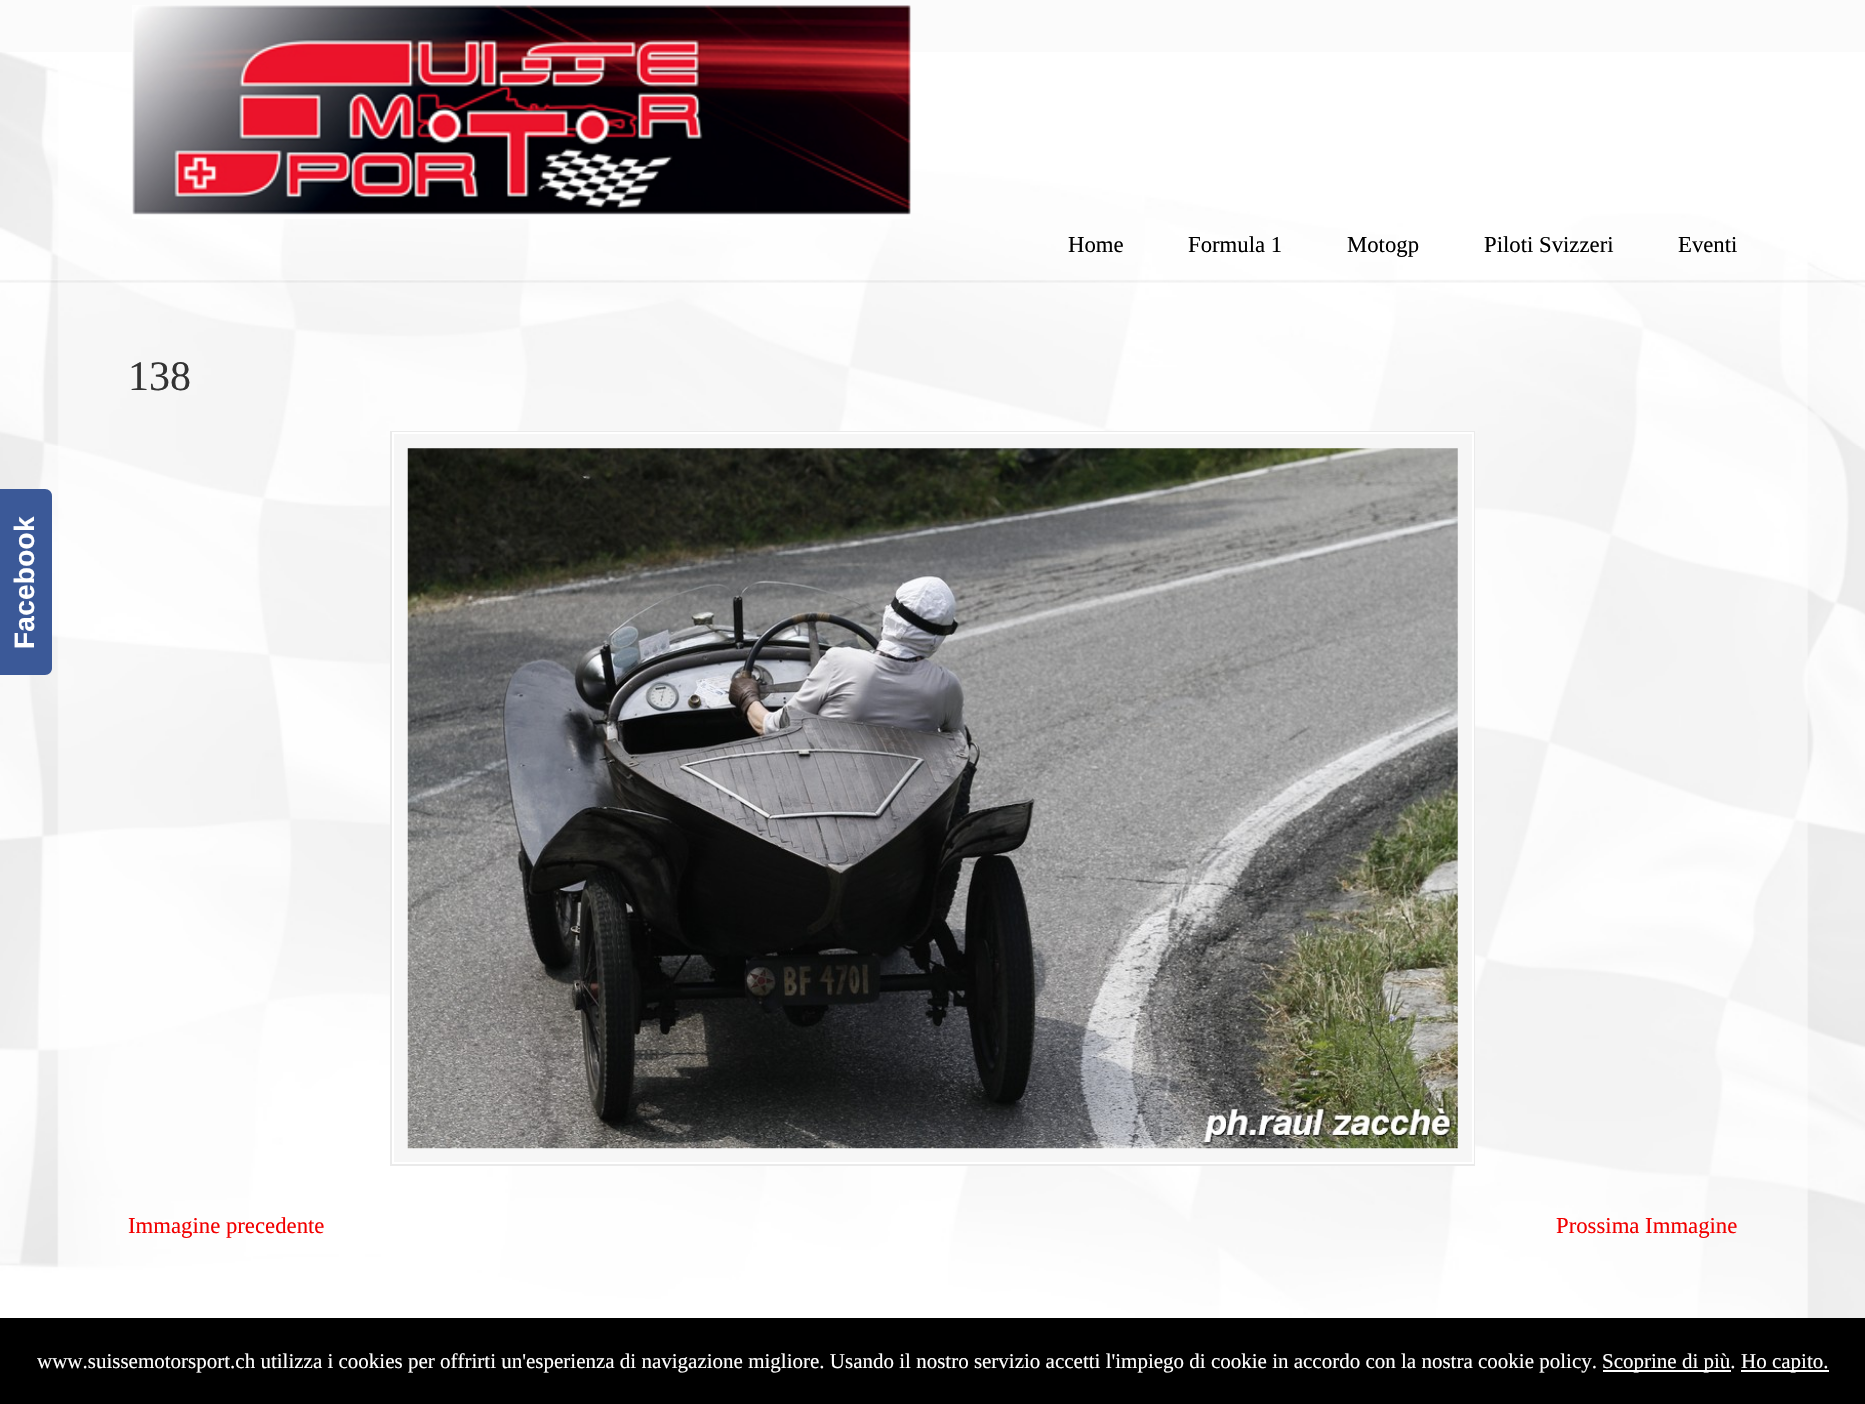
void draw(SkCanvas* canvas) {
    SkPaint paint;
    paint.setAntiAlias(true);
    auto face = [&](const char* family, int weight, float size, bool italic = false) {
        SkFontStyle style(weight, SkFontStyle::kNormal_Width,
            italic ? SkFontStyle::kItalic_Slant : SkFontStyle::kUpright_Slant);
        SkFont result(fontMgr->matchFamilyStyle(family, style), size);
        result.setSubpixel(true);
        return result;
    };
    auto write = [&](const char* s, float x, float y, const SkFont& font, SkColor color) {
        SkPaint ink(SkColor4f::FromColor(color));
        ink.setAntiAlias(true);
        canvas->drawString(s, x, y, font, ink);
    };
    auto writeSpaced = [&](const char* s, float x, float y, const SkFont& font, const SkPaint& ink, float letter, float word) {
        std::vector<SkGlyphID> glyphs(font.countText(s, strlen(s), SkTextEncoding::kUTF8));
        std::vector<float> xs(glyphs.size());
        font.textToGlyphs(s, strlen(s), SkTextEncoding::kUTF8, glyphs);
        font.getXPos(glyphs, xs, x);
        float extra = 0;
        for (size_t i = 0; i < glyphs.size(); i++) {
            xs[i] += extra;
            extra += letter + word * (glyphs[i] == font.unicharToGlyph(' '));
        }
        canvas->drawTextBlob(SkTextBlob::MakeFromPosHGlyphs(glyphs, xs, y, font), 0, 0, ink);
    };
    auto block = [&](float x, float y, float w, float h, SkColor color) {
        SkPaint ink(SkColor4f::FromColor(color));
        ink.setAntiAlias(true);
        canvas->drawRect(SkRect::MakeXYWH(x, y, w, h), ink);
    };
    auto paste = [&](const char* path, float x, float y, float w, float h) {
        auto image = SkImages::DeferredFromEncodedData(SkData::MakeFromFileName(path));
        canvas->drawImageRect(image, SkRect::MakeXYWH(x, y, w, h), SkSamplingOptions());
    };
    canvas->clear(SkColorSetRGB(251, 251, 251));
    paste("pic1.png", 0, 52, 1865, 1266);
    paint.setColor(SkColorSetRGB(59, 89, 152));
    canvas->drawPath(SkPathBuilder().moveTo(-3, 675).lineTo(-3, 489).lineTo(45, 489).cubicTo(49, 489, 52, 492, 52, 496).lineTo(52, 668).cubicTo(52, 672, 49, 675, 45, 675).close().detach(), paint);
    auto kFont1 = face("Liberation Sans", 700, 28);
    paint.setColor(SK_ColorWHITE);
    canvas->save();
    canvas->rotate(-90, 34, 649);
    writeSpaced("Facebook", 34, 649, kFont1, paint, 0.25f, 0);
    canvas->restore();
    paste("pic2.png", 132, 5, 779, 214);
    auto kFont2 = face("Liberation Serif", 400, 22.75f);
    write("Home", 1068, 252, kFont2, SK_ColorBLACK);
    write("Formula 1", 1188, 252, kFont2, SK_ColorBLACK);
    write("Motogp", 1347, 252, kFont2, SK_ColorBLACK);
    write("Piloti Svizzeri", 1484, 252, kFont2, SK_ColorBLACK);
    write("Eventi", 1678, 252, kFont2, SK_ColorBLACK);
    paste("pic3.png", 0, 279, 1865, 4);
    auto kFont3 = face("Liberation Serif", 400, 42);
    write("138", 128, 390, kFont3, SkColorSetRGB(51, 51, 51));
    block(394, 434, 1078, 728, SkColorSetRGB(246, 246, 246));
    paint.setStyle(SkPaint::kStroke_Style);
    paint.setStrokeWidth(2);
    paint.setColor(SkColorSetRGB(234, 234, 234));
    canvas->drawRect(SkRect::MakeXYWH(391, 432, 1083, 733), paint);
    paint.setColor(SK_ColorWHITE);
    canvas->drawRect(SkRect::MakeXYWH(393, 433, 1080, 730), paint);
    paste("pic4.png", 407, 448, 1051, 701);
    write("Immagine precedente", 128, 1233, kFont2, SkColorSetRGB(242, 0, 0));
    write("Prossima Immagine", 1556, 1233, kFont2, SkColorSetRGB(242, 0, 0));
    block(0, 1318, 1865, 86, SK_ColorBLACK);
    auto kFont4 = face("Liberation Serif", 400, 21);
    write("www.suissemotorsport.ch utilizza i cookies per offrirti un'esperienza di navigazione migliore. Usando il nostro servizio accetti l'impiego di cookie in accordo con la nostra cookie policy.", 37, 1368, kFont4, SK_ColorWHITE);
    block(1603, 1370, 128, 2, SK_ColorWHITE);
    write("Scoprine di più.", 1602, 1368, kFont4, SK_ColorWHITE);
    block(1741, 1370, 88, 2, SK_ColorWHITE);
    write("Ho capito.", 1741, 1368, kFont4, SK_ColorWHITE);
}
